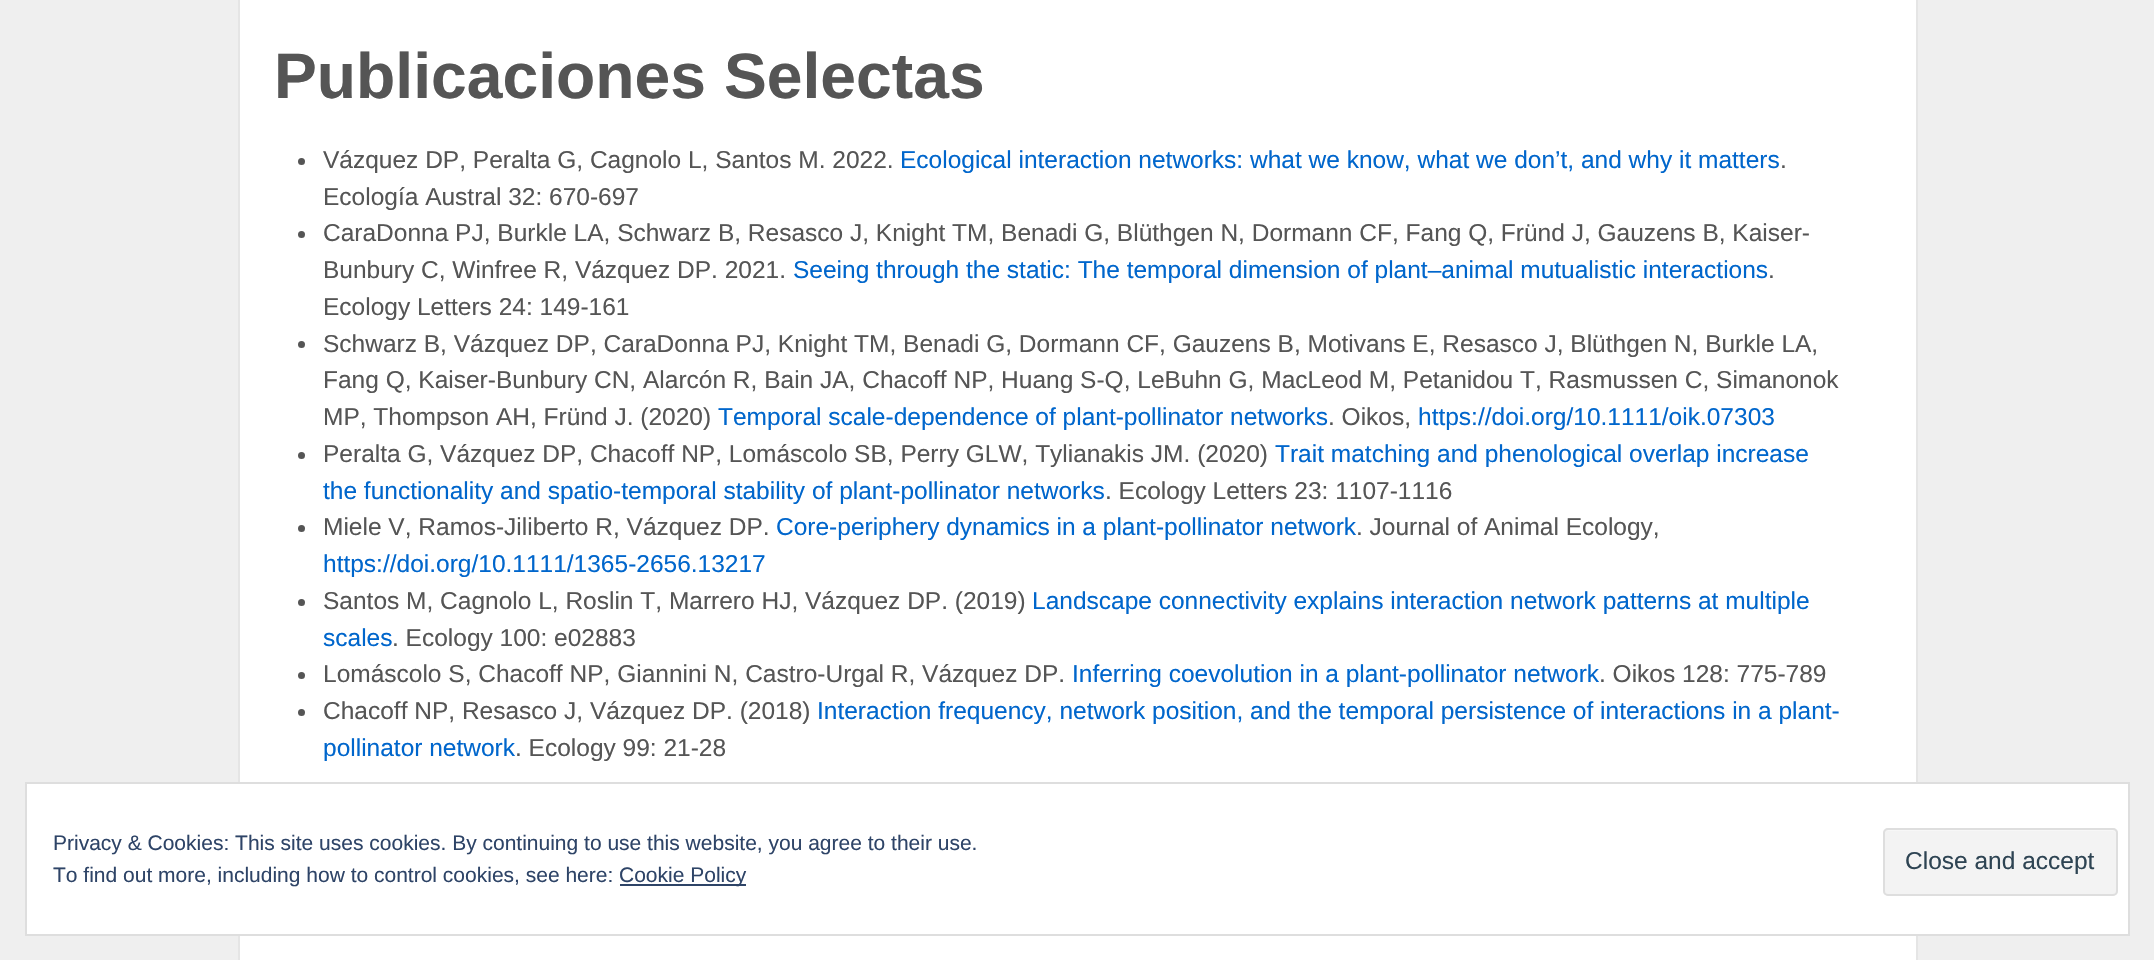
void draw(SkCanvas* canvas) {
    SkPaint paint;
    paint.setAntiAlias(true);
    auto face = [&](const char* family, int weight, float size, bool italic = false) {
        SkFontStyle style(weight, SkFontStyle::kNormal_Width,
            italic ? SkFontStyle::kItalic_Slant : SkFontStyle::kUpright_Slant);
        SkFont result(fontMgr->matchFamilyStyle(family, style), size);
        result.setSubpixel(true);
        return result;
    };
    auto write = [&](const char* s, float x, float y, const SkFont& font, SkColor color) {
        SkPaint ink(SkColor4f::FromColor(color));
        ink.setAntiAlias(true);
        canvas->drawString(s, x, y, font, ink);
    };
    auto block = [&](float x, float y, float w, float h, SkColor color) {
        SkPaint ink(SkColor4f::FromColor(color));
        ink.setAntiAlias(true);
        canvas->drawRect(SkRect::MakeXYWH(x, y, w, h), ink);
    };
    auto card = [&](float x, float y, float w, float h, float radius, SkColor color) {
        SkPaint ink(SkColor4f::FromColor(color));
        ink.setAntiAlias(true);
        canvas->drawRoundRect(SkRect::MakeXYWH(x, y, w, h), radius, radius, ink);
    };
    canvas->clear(SkColorSetRGB(239, 239, 239));
    paint.setColor(SK_ColorWHITE);
    canvas->drawRect(SkRect::MakeXYWH(239, -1, 1678, 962), paint);
    paint.setStyle(SkPaint::kStroke_Style);
    paint.setStrokeWidth(2);
    paint.setColor(SkColorSetRGB(229, 229, 229));
    canvas->drawRect(SkRect::MakeXYWH(239, -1, 1678, 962), paint);
    auto kFont1 = face("Liberation Sans", 700, 64.25f);
    write("Publicaciones Selectas", 274, 98, kFont1, SkColorSetRGB(85, 85, 85));
    paint.setStyle(SkPaint::kFill_Style);
    paint.setColor(SkColorSetRGB(85, 85, 85));
    canvas->drawCircle(301.5f, 161.5f, 3.5f, paint);
    auto kFont2 = face("Liberation Sans", 400, 24.5f);
    write("Vázquez DP, Peralta G, Cagnolo L, Santos M. 2022.", 323, 168, kFont2, SkColorSetRGB(85, 85, 85));
    write("Ecological interaction networks: what we know, what we don’t, and why it matters", 900, 168, kFont2, SkColorSetRGB(0, 102, 204));
    write(".", 1780, 168, kFont2, SkColorSetRGB(85, 85, 85));
    write("Ecología Austral 32: 670-697", 323, 205, kFont2, SkColorSetRGB(85, 85, 85));
    canvas->drawCircle(301.5f, 234.5f, 3.5f, paint);
    write("CaraDonna PJ, Burkle LA, Schwarz B, Resasco J, Knight TM, Benadi G, Blüthgen N, Dormann CF, Fang Q, Fründ J, Gauzens B, Kaiser-", 323, 241, kFont2, SkColorSetRGB(85, 85, 85));
    write("Bunbury C, Winfree R, Vázquez DP. 2021.", 323, 278, kFont2, SkColorSetRGB(85, 85, 85));
    write("Seeing through the static: The temporal dimension of plant–animal mutualistic interactions", 793, 278, kFont2, SkColorSetRGB(0, 102, 204));
    write(".", 1768, 278, kFont2, SkColorSetRGB(85, 85, 85));
    write("Ecology Letters 24: 149-161", 323, 315, kFont2, SkColorSetRGB(85, 85, 85));
    canvas->drawCircle(301.5f, 344.5f, 3.5f, paint);
    write("Schwarz B, Vázquez DP, CaraDonna PJ, Knight TM, Benadi G, Dormann CF, Gauzens B, Motivans E, Resasco J, Blüthgen N, Burkle LA,", 323, 352, kFont2, SkColorSetRGB(85, 85, 85));
    write("Fang Q, Kaiser-Bunbury CN, Alarcón R, Bain JA, Chacoff NP, Huang S-Q, LeBuhn G, MacLeod M, Petanidou T, Rasmussen C, Simanonok", 323, 388, kFont2, SkColorSetRGB(85, 85, 85));
    write("MP, Thompson AH, Fründ J. (2020)", 323, 425, kFont2, SkColorSetRGB(85, 85, 85));
    write("Temporal scale-dependence of plant-pollinator networks", 718, 425, kFont2, SkColorSetRGB(0, 102, 204));
    write(". Oikos,", 1328, 425, kFont2, SkColorSetRGB(85, 85, 85));
    write("https://doi.org/10.1111/oik.07303", 1418, 425, kFont2, SkColorSetRGB(0, 102, 204));
    canvas->drawCircle(301.5f, 455.5f, 3.5f, paint);
    write("Peralta G, Vázquez DP, Chacoff NP, Lomáscolo SB, Perry GLW, Tylianakis JM. (2020)", 323, 462, kFont2, SkColorSetRGB(85, 85, 85));
    write("Trait matching and phenological overlap increase", 1275, 462, kFont2, SkColorSetRGB(0, 102, 204));
    write("the functionality and spatio-temporal stability of plant-pollinator networks", 323, 499, kFont2, SkColorSetRGB(0, 102, 204));
    write(". Ecology Letters 23: 1107-1116", 1105, 499, kFont2, SkColorSetRGB(85, 85, 85));
    canvas->drawCircle(301.5f, 528.5f, 3.5f, paint);
    write("Miele V, Ramos-Jiliberto R, Vázquez DP.", 323, 535, kFont2, SkColorSetRGB(85, 85, 85));
    write("Core-periphery dynamics in a plant-pollinator network", 776, 535, kFont2, SkColorSetRGB(0, 102, 204));
    write(". Journal of Animal Ecology,", 1356, 535, kFont2, SkColorSetRGB(85, 85, 85));
    write("https://doi.org/10.1111/1365-2656.13217", 323, 572, kFont2, SkColorSetRGB(0, 102, 204));
    canvas->drawCircle(301.5f, 602.5f, 3.5f, paint);
    write("Santos M, Cagnolo L, Roslin T, Marrero HJ, Vázquez DP. (2019)", 323, 609, kFont2, SkColorSetRGB(85, 85, 85));
    write("Landscape connectivity explains interaction network patterns at multiple", 1032, 609, kFont2, SkColorSetRGB(0, 102, 204));
    write("scales", 323, 646, kFont2, SkColorSetRGB(0, 102, 204));
    write(". Ecology 100: e02883", 392, 646, kFont2, SkColorSetRGB(85, 85, 85));
    canvas->drawCircle(301.5f, 675.5f, 3.5f, paint);
    write("Lomáscolo S, Chacoff NP, Giannini N, Castro-Urgal R, Vázquez DP.", 323, 682, kFont2, SkColorSetRGB(85, 85, 85));
    write("Inferring coevolution in a plant-pollinator network", 1072, 682, kFont2, SkColorSetRGB(0, 102, 204));
    write(". Oikos 128: 775-789", 1599, 682, kFont2, SkColorSetRGB(85, 85, 85));
    canvas->drawCircle(301.5f, 712.5f, 3.5f, paint);
    write("Chacoff NP, Resasco J, Vázquez DP. (2018)", 323, 719, kFont2, SkColorSetRGB(85, 85, 85));
    write("Interaction frequency, network position, and the temporal persistence of interactions in a plant-", 817, 719, kFont2, SkColorSetRGB(0, 102, 204));
    write("pollinator network", 323, 756, kFont2, SkColorSetRGB(0, 102, 204));
    write(". Ecology 99: 21-28", 515, 756, kFont2, SkColorSetRGB(85, 85, 85));
    paint.setColor(SK_ColorWHITE);
    canvas->drawRect(SkRect::MakeXYWH(26, 783, 2103, 152), paint);
    paint.setStyle(SkPaint::kStroke_Style);
    paint.setColor(SkColorSetRGB(222, 222, 222));
    canvas->drawRect(SkRect::MakeXYWH(26, 783, 2103, 152), paint);
    auto kFont3 = face("Liberation Sans", 400, 21);
    write("Privacy & Cookies: This site uses cookies. By continuing to use this website, you agree to their use.", 53, 850, kFont3, SkColorSetRGB(46, 68, 103));
    write("To find out more, including how to control cookies, see here:", 53, 882, kFont3, SkColorSetRGB(46, 68, 103));
    block(620, 884, 126, 2, SkColorSetRGB(46, 68, 103));
    write("Cookie Policy", 619, 882, kFont3, SkColorSetRGB(46, 68, 103));
    card(1883, 828, 235, 68, 5, SkColorSetRGB(243, 243, 243));
    paint.setStyle(SkPaint::kFill_Style);
    paint.setColor(SkColorSetRGB(247, 247, 247));
    canvas->drawPath(SkPathBuilder().moveTo(1888, 831).lineTo(2112, 831).cubicTo(2114, 831, 2116, 833, 2116, 835).cubicTo(2116, 832, 2115, 830, 2112, 830).lineTo(1889, 830).cubicTo(1886, 830, 1885, 832, 1885, 835).cubicTo(1885, 833, 1886, 831, 1888, 831).close().detach(), paint);
    paint.setStyle(SkPaint::kStroke_Style);
    paint.setColor(SkColorSetRGB(222, 222, 222));
    canvas->drawRoundRect(SkRect::MakeXYWH(1884, 829, 233, 66), 4, 4, paint);
    write("Close and accept", 1905, 869, kFont2, SkColorSetRGB(46, 68, 83));
}
